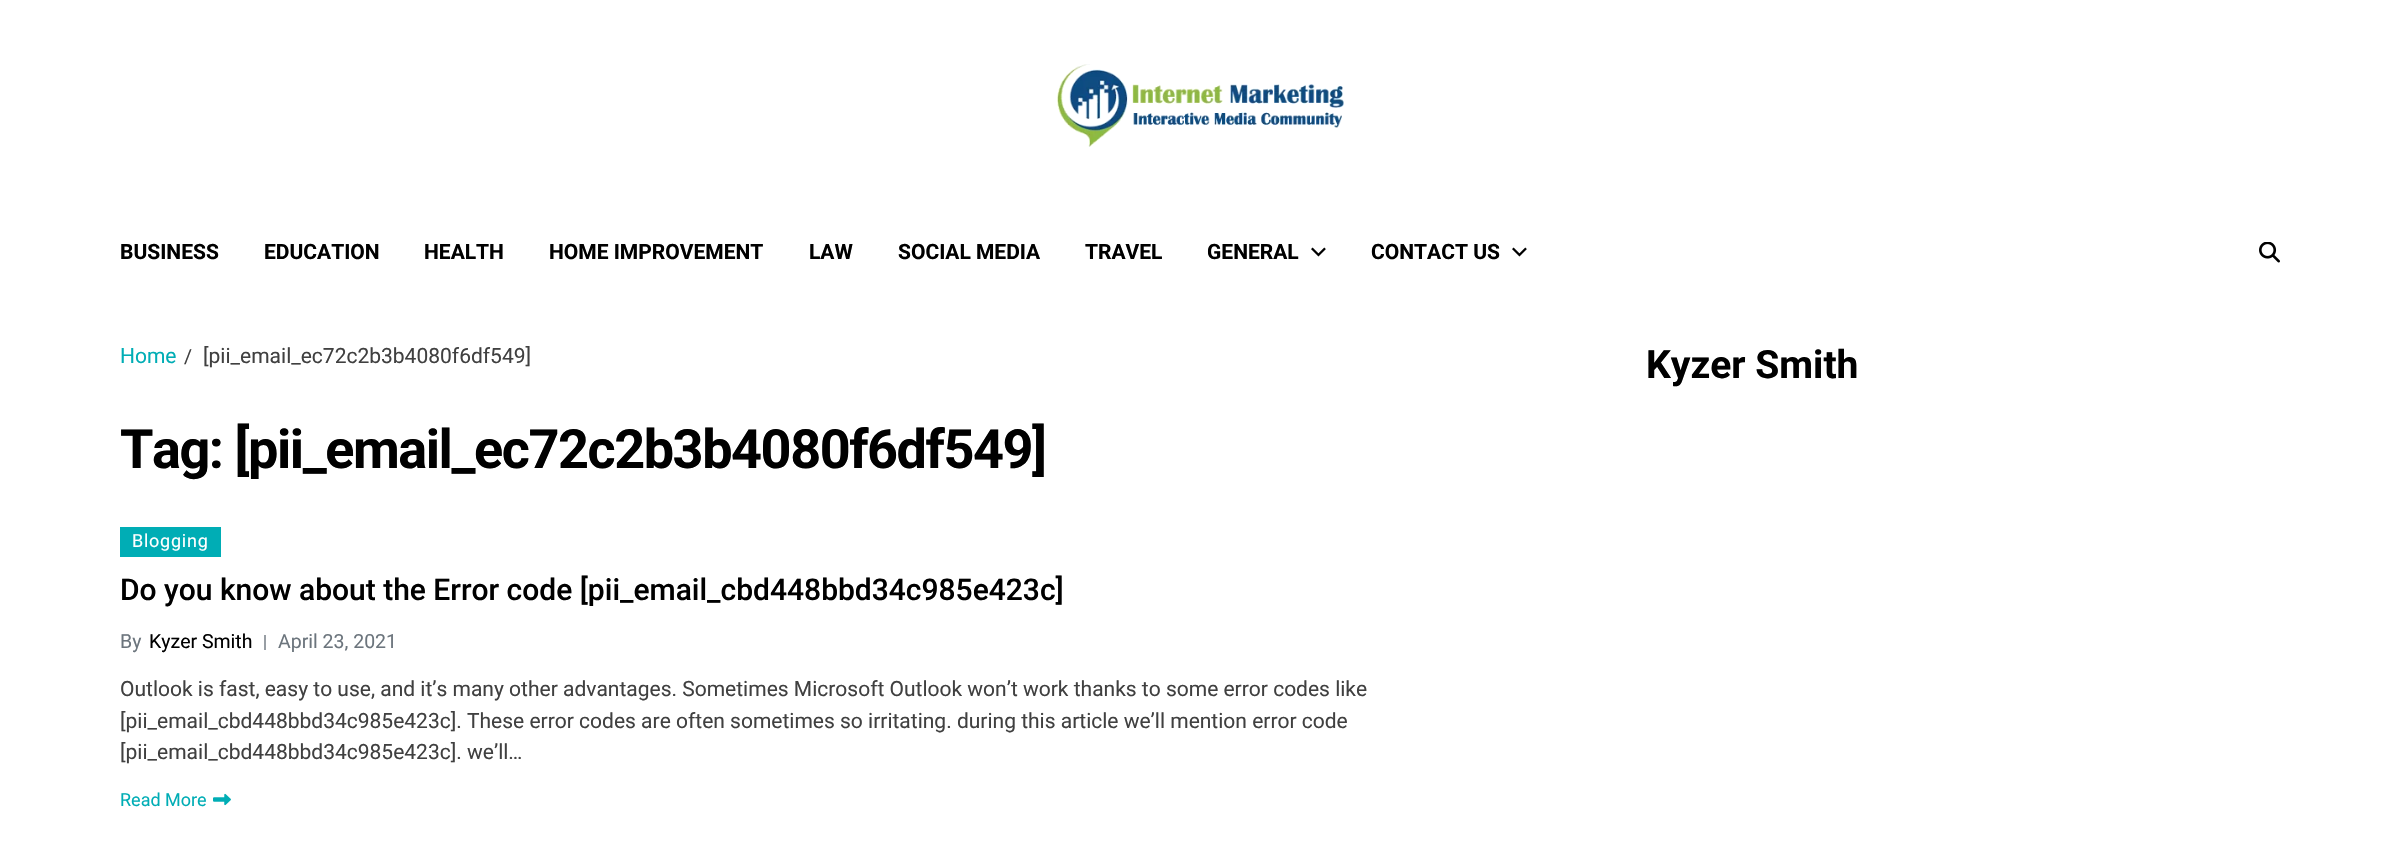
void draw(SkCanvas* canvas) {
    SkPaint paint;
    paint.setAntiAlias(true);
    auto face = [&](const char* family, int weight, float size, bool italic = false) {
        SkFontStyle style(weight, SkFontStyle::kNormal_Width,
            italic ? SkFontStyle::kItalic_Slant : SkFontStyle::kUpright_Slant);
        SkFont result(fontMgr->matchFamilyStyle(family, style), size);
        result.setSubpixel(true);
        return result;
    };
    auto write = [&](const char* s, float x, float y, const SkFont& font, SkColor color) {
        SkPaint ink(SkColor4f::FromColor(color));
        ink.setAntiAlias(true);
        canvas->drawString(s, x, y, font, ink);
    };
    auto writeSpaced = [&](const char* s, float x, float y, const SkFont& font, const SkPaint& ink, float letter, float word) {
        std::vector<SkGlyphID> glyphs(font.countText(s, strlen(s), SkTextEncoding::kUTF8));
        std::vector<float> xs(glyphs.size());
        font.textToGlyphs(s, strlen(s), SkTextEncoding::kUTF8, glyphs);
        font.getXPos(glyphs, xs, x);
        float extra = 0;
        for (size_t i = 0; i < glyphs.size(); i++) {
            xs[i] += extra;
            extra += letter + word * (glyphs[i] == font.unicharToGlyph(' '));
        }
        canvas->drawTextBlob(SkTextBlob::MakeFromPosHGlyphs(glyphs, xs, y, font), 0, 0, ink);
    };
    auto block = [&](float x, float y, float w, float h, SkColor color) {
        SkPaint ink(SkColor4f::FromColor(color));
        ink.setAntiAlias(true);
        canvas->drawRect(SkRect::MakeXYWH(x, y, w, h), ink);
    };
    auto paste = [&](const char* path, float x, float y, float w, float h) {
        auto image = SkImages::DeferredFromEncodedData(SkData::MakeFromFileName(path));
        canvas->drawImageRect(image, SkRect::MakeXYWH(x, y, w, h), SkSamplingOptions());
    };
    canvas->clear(SK_ColorWHITE);
    paste("pic1.png", 1057, 64, 287, 83);
    auto kFont1 = face("Roboto", 700, 21);
    write("BUSINESS", 120, 259, kFont1, SK_ColorBLACK);
    write("EDUCATION", 264, 259, kFont1, SK_ColorBLACK);
    write("HEALTH", 424, 259, kFont1, SK_ColorBLACK);
    write("HOME IMPROVEMENT", 549, 259, kFont1, SK_ColorBLACK);
    write("LAW", 809, 259, kFont1, SK_ColorBLACK);
    write("SOCIAL MEDIA", 898, 259, kFont1, SK_ColorBLACK);
    write("TRAVEL", 1085, 259, kFont1, SK_ColorBLACK);
    write("GENERAL", 1207, 259, kFont1, SK_ColorBLACK);
    paste("pic2.png", 1311, 247, 15, 10);
    write("CONTACT US", 1371, 259, kFont1, SK_ColorBLACK);
    paste("pic2.png", 1512, 247, 15, 10);
    paste("pic3.png", 2259, 242, 21, 21);
    auto kFont2 = face("Roboto", 400, 21);
    write("Home", 120, 363, kFont2, SkColorSetRGB(0, 173, 181));
    auto kFont3 = face("Roboto", 400, 19.5f);
    write("/", 184, 363, kFont3, SkColorSetRGB(64, 64, 64));
    write("[pii_email_ec72c2b3b4080f6df549]", 203, 363, kFont2, SkColorSetRGB(64, 64, 64));
    auto kFont4 = face("Roboto", 700, 54);
    paint.setColor(SK_ColorBLACK);
    writeSpaced("Tag: [pii_email_ec72c2b3b4080f6df549]", 120, 468, kFont4, paint, -1.45f, 0);
    block(120, 527, 101, 30, SkColorSetRGB(0, 173, 181));
    auto kFont5 = face("Roboto", 400, 18);
    paint.setColor(SK_ColorWHITE);
    writeSpaced("Blogging", 132, 547, kFont5, paint, 0.75f, 0);
    auto kFont6 = face("Roboto", 500, 30);
    write("Do you know about the Error code [pii_email_cbd448bbd34c985e423c]", 120, 600, kFont6, SK_ColorBLACK);
    write("By", 120, 648, kFont3, SkColorSetRGB(108, 117, 125));
    write("Kyzer Smith", 149, 648, kFont3, SK_ColorBLACK);
    block(264, 635, 2, 15, SkColorSetRGB(152, 158, 164));
    write("April 23, 2021", 278, 648, kFont3, SkColorSetRGB(108, 117, 125));
    write("Outlook is fast, easy to use, and it’s many other advantages. Sometimes Microsoft Outlook won’t work thanks to some error codes like", 120, 696, kFont2, SkColorSetRGB(64, 64, 64));
    write("[pii_email_cbd448bbd34c985e423c]. These error codes are often sometimes so irritating. during this article we’ll mention error code", 120, 728, kFont2, SkColorSetRGB(64, 64, 64));
    write("[pii_email_cbd448bbd34c985e423c]. we’ll…", 120, 759, kFont2, SkColorSetRGB(64, 64, 64));
    write("Read More", 120, 806, kFont5, SkColorSetRGB(0, 173, 181));
    paste("pic4.png", 213, 793, 18, 13);
    auto kFont7 = face("Roboto", 700, 39);
    write("Kyzer Smith", 1646, 378, kFont7, SK_ColorBLACK);
}
